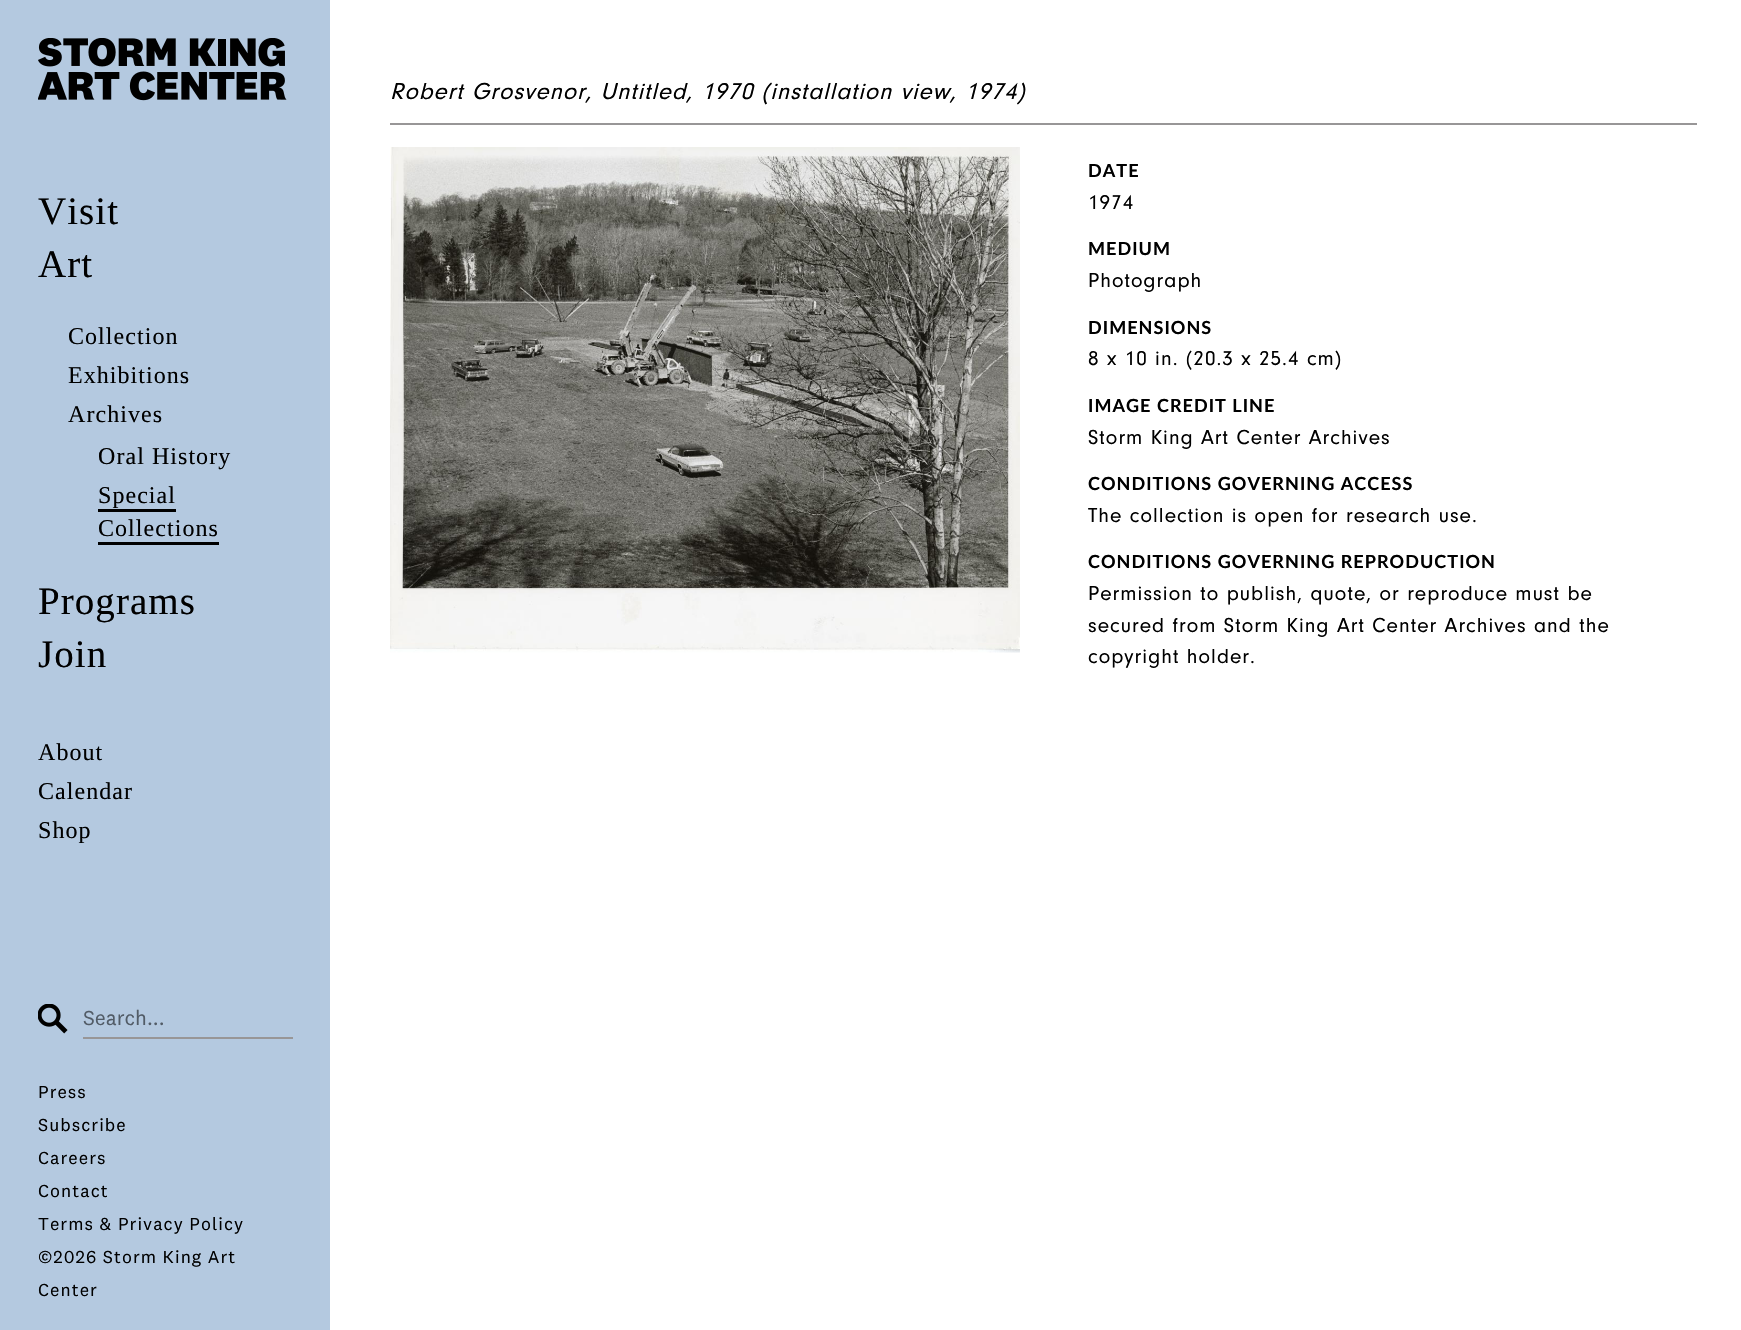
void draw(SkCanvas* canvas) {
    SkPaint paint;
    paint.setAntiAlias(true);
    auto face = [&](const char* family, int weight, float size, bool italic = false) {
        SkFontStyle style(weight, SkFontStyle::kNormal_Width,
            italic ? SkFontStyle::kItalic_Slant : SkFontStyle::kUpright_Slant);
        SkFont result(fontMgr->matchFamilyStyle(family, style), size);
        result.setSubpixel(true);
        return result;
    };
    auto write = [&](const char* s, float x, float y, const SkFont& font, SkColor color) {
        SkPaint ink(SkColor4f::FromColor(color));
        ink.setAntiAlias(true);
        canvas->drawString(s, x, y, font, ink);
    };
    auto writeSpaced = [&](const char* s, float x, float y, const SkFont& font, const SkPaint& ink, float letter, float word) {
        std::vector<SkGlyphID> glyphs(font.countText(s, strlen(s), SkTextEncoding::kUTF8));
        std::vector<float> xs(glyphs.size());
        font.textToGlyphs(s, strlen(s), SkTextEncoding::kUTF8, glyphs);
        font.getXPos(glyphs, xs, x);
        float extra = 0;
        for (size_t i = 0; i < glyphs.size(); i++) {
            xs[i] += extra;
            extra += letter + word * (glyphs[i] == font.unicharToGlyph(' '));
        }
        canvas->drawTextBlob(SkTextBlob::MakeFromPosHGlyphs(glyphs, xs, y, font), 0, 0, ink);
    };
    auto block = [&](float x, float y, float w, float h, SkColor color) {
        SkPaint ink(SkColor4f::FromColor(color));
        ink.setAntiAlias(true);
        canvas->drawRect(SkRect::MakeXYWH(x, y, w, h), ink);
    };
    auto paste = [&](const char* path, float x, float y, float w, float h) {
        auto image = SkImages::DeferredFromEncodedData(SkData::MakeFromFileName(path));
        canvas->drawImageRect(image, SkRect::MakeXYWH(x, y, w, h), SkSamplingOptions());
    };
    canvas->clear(SK_ColorWHITE);
    block(0, 0, 330, 1330, SkColorSetRGB(180, 201, 224));
    paste("pic1.png", 38, 38, 249, 63);
    auto kFont1 = face("Liberation Serif", 400, 39);
    paint.setColor(SK_ColorBLACK);
    writeSpaced("Visit", 38, 224, kFont1, paint, 1.05f, 0);
    writeSpaced("Art", 38, 277, kFont1, paint, 1.05f, 0);
    auto kFont2 = face("Liberation Serif", 400, 24);
    writeSpaced("Collection", 68, 344, kFont2, paint, 1.05f, 0);
    writeSpaced("Exhibitions", 68, 383, kFont2, paint, 1.05f, 0);
    writeSpaced("Archives", 68, 422, kFont2, paint, 1.05f, 0);
    writeSpaced("Oral History", 98, 464, kFont2, paint, 1.05f, 0);
    writeSpaced("Special", 98, 503, kFont2, paint, 1.05f, 0);
    block(98, 509, 78, 3, SK_ColorBLACK);
    writeSpaced("Collections", 98, 536, kFont2, paint, 1.05f, 0);
    block(98, 542, 121, 3, SK_ColorBLACK);
    writeSpaced("Programs", 38, 614, kFont1, paint, 1.05f, 0);
    writeSpaced("Join", 38, 667, kFont1, paint, 1.05f, 0);
    writeSpaced("About", 38, 760, kFont2, paint, 1.05f, 0);
    writeSpaced("Calendar", 38, 799, kFont2, paint, 1.05f, 0);
    writeSpaced("Shop", 38, 838, kFont2, paint, 1.05f, 0);
    paste("pic2.png", 38, 1004, 30, 30);
    block(83, 1037, 210, 2, SkColorSetRGB(152, 150, 151));
    auto kFont3 = face("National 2", 400, 21);
    write("Search...", 83, 1025, kFont3, SkColorSetRGB(82, 92, 103));
    auto kFont4 = face("National 2", 400, 18);
    writeSpaced("Press", 38, 1098, kFont4, paint, 1.05f, 0);
    writeSpaced("Subscribe", 38, 1131, kFont4, paint, 1.05f, 0);
    writeSpaced("Careers", 38, 1164, kFont4, paint, 1.05f, 0);
    writeSpaced("Contact", 38, 1197, kFont4, paint, 1.05f, 0);
    writeSpaced("Terms & Privacy Policy", 38, 1230, kFont4, paint, 1.05f, 0);
    writeSpaced("©2026 Storm King Art", 38, 1263, kFont4, paint, 1.05f, 0);
    writeSpaced("Center", 38, 1296, kFont4, paint, 1.05f, 0);
    auto kFont5 = face("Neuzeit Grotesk", 400, 24, true);
    writeSpaced("Robert Grosvenor, Untitled, 1970 (installation view, 1974)", 390, 99, kFont5, paint, 1.05f, 0);
    block(390, 123, 1307, 2, SkColorSetRGB(152, 150, 151));
    paste("pic3.png", 390, 147, 630, 506);
    auto kFont6 = face("Lato", 700, 18);
    writeSpaced("DATE", 1088, 177, kFont6, paint, 1.05f, 0);
    auto kFont7 = face("Neuzeit Grotesk", 400, 21);
    writeSpaced("1974", 1088, 209, kFont7, paint, 1.05f, 0);
    writeSpaced("MEDIUM", 1088, 255, kFont6, paint, 1.05f, 0);
    writeSpaced("Photograph", 1088, 287, kFont7, paint, 1.05f, 0);
    writeSpaced("DIMENSIONS", 1088, 334, kFont6, paint, 1.05f, 0);
    writeSpaced("8 x 10 in. (20.3 x 25.4 cm)", 1088, 365, kFont7, paint, 1.05f, 0);
    writeSpaced("IMAGE CREDIT LINE", 1088, 412, kFont6, paint, 1.05f, 0);
    writeSpaced("Storm King Art Center Archives", 1088, 444, kFont7, paint, 1.05f, 0);
    writeSpaced("CONDITIONS GOVERNING ACCESS", 1088, 490, kFont6, paint, 1.05f, 0);
    writeSpaced("The collection is open for research use.", 1088, 522, kFont7, paint, 1.05f, 0);
    writeSpaced("CONDITIONS GOVERNING REPRODUCTION", 1088, 568, kFont6, paint, 1.05f, 0);
    writeSpaced("Permission to publish, quote, or reproduce must be", 1088, 600, kFont7, paint, 1.05f, 0);
    writeSpaced("secured from Storm King Art Center Archives and the", 1088, 632, kFont7, paint, 1.05f, 0);
    writeSpaced("copyright holder.", 1088, 663, kFont7, paint, 1.05f, 0);
}
